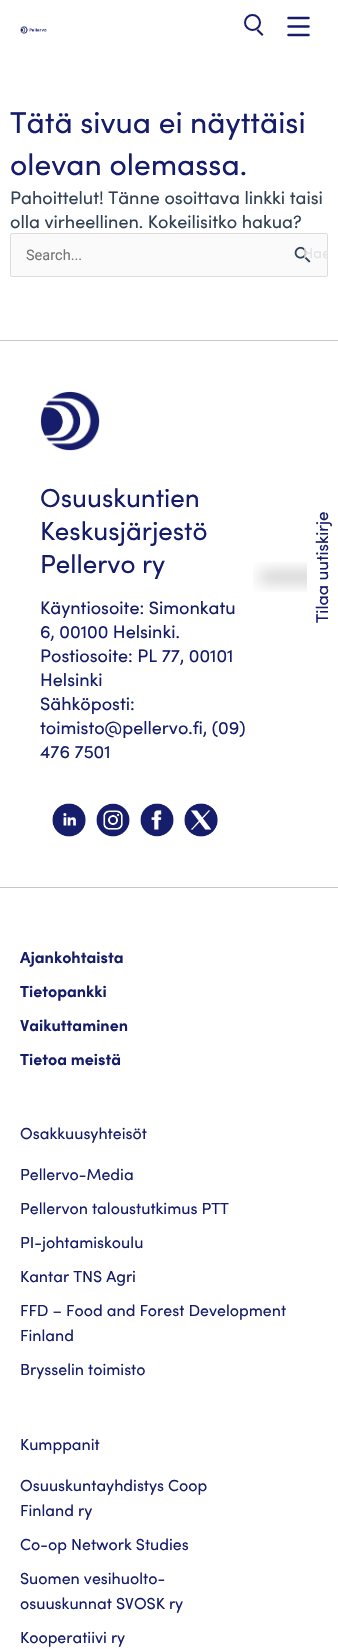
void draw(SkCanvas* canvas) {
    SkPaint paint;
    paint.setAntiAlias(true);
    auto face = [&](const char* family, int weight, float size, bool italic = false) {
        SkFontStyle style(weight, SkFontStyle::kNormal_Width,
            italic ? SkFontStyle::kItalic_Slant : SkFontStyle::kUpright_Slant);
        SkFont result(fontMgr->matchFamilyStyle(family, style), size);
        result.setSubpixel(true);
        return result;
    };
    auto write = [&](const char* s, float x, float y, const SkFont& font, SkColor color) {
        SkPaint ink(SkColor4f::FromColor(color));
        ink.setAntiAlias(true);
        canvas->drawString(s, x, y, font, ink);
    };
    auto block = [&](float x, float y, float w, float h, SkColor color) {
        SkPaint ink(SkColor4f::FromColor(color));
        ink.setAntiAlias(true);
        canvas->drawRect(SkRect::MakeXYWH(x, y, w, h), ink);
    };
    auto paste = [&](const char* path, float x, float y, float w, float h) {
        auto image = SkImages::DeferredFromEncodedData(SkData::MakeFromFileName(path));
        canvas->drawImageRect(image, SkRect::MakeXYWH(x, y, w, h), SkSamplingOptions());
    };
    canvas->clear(SK_ColorWHITE);
    paste("pic1.png", 20, 26, 27, 8);
    paint.setStyle(SkPaint::kStroke_Style);
    paint.setStrokeWidth(2);
    paint.setColor(SkColorSetRGB(21, 29, 107));
    canvas->drawCircle(252.5f, 22.5f, 7.5f, paint);
    paint.setStyle(SkPaint::kFill_Style);
    canvas->drawPath(SkPathBuilder().moveTo(258, 29).lineTo(263.5f, 34.5f).lineTo(262, 36).lineTo(256.5f, 30.5f).close().detach(), paint);
    paint.setStyle(SkPaint::kStroke_Style);
    paint.setStrokeWidth(2.5f);
    paint.setStrokeCap(SkPaint::kRound_Cap);
    paint.setStrokeJoin(SkPaint::kRound_Join);
    canvas->drawPath(SkPathBuilder().moveTo(288.5f, 18).lineTo(308.5f, 18).moveTo(288.5f, 26.5f).lineTo(308.5f, 26.5f).moveTo(288.5f, 35).lineTo(308.5f, 35).detach(), paint);
    auto kFont1 = face("Sofia", 400, 30);
    write("Tätä sivua ei näyttäisi", 10, 133, kFont1, SkColorSetRGB(21, 29, 107));
    write("olevan olemassa.", 10, 175, kFont1, SkColorSetRGB(21, 29, 107));
    auto kFont2 = face("Sofia", 400, 18);
    write("Pahoittelut! Tänne osoittava linkki taisi", 10, 204, kFont2, SkColorSetRGB(51, 65, 85));
    write("olla virheellinen. Kokeilisitko hakua?", 10, 228, kFont2, SkColorSetRGB(51, 65, 85));
    paint.setStyle(SkPaint::kFill_Style);
    paint.setColor(SkColorSetRGB(250, 250, 250));
    canvas->drawRoundRect(SkRect::MakeXYWH(10.5f, 233.5f, 317, 43), 1.5f, 1.5f, paint);
    paint.setStyle(SkPaint::kStroke_Style);
    paint.setStrokeWidth(1);
    paint.setStrokeCap(SkPaint::kButt_Cap);
    paint.setStrokeJoin(SkPaint::kMiter_Join);
    paint.setColor(SkColorSetRGB(221, 221, 221));
    canvas->drawRoundRect(SkRect::MakeXYWH(10.5f, 233.5f, 317, 43), 1.5f, 1.5f, paint);
    auto kFont3 = face("Roboto", 400, 14.5f);
    write("Search...", 26, 260, kFont3, SkColorSetRGB(117, 117, 117));
    paste("pic2.png", 294, 246, 17, 17);
    canvas->save();
    canvas->clipPath(SkPathBuilder().moveTo(285, 233).lineTo(326, 233).cubicTo(327, 233, 328, 234, 328, 235).lineTo(328, 272).cubicTo(328, 273, 327, 274, 326, 274).lineTo(285, 274).cubicTo(284, 274, 283, 273, 283, 272).lineTo(283, 235).cubicTo(283, 234, 284, 233, 285, 233).close().detach(), true);
    auto kFont4 = face("Sofia", 400, 14.5f);
    write("Hae", 303, 258, kFont4, SkColorSetRGB(227, 228, 230));
    canvas->restore();
    block(0, 340, 338, 1, SkColorSetRGB(199, 199, 199));
    block(0, 887, 338, 1, SkColorSetRGB(199, 199, 199));
    paste("pic3.png", 40, 391, 60, 60);
    auto kFont5 = face("Sofia", 400, 26);
    write("Osuuskuntien", 40, 507, kFont5, SkColorSetRGB(21, 29, 107));
    write("Keskusjärjestö", 40, 540, kFont5, SkColorSetRGB(21, 29, 107));
    write("Pellervo ry", 40, 573, kFont5, SkColorSetRGB(21, 29, 107));
    write("Käyntiosoite: Simonkatu", 40, 614, kFont2, SkColorSetRGB(21, 29, 107));
    write("6, 00100 Helsinki.", 40, 638, kFont2, SkColorSetRGB(21, 29, 107));
    write("Postiosoite: PL 77, 00101", 40, 662, kFont2, SkColorSetRGB(21, 29, 107));
    write("Helsinki", 40, 686, kFont2, SkColorSetRGB(21, 29, 107));
    write("Sähköposti:", 40, 710, kFont2, SkColorSetRGB(21, 29, 107));
    write("toimisto@pellervo.fi, (09)", 40, 734, kFont2, SkColorSetRGB(21, 29, 107));
    write("476 7501", 40, 758, kFont2, SkColorSetRGB(21, 29, 107));
    paste("pic4.png", 52, 803, 34, 34);
    paste("pic5.png", 96, 803, 34, 34);
    paste("pic6.png", 140, 803, 34, 34);
    paste("pic7.png", 184, 803, 34, 34);
    auto kFont6 = face("Sofia", 700, 16);
    write("Ajankohtaista", 20, 963, kFont6, SkColorSetRGB(21, 29, 107));
    write("Tietopankki", 20, 997, kFont6, SkColorSetRGB(21, 29, 107));
    write("Vaikuttaminen", 20, 1031, kFont6, SkColorSetRGB(21, 29, 107));
    write("Tietoa meistä", 20, 1065, kFont6, SkColorSetRGB(21, 29, 107));
    auto kFont7 = face("Sofia", 400, 16);
    write("Osakkuusyhteisöt", 20, 1139, kFont7, SkColorSetRGB(21, 29, 107));
    write("Pellervo-Media", 20, 1180, kFont7, SkColorSetRGB(21, 29, 107));
    write("Pellervon taloustutkimus PTT", 20, 1214, kFont7, SkColorSetRGB(21, 29, 107));
    write("PI-johtamiskoulu", 20, 1248, kFont7, SkColorSetRGB(21, 29, 107));
    write("Kantar TNS Agri", 20, 1282, kFont7, SkColorSetRGB(21, 29, 107));
    write("FFD – Food and Forest Development", 20, 1316, kFont7, SkColorSetRGB(21, 29, 107));
    write("Finland", 20, 1341, kFont7, SkColorSetRGB(21, 29, 107));
    write("Brysselin toimisto", 20, 1375, kFont7, SkColorSetRGB(21, 29, 107));
    write("Kumppanit", 20, 1450, kFont7, SkColorSetRGB(21, 29, 107));
    write("Osuuskuntayhdistys Coop", 20, 1491, kFont7, SkColorSetRGB(21, 29, 107));
    write("Finland ry", 20, 1516, kFont7, SkColorSetRGB(21, 29, 107));
    write("Co-op Network Studies", 20, 1550, kFont7, SkColorSetRGB(21, 29, 107));
    write("Suomen vesihuolto-", 20, 1584, kFont7, SkColorSetRGB(21, 29, 107));
    write("osuuskunnat SVOSK ry", 20, 1609, kFont7, SkColorSetRGB(21, 29, 107));
    write("Kooperatiivi ry", 20, 1643, kFont7, SkColorSetRGB(21, 29, 107));
    canvas->save();
    canvas->clipRect(SkRect::MakeXYWH(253, 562, 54, 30));
    paint.setStyle(SkPaint::kFill_Style);
    paint.setColor(SkColorSetARGB(61, 0, 0, 0));
    paint.setMaskFilter(SkMaskFilter::MakeBlur(kNormal_SkBlurStyle, 7.5f));
    canvas->drawRect(SkRect::MakeXYWH(260, 572, 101, 10), paint);
    paint.setMaskFilter(nullptr);
    canvas->restore();
    auto kFont8 = face("Sofia", 400, 17);
    canvas->save();
    canvas->rotate(-90, 328, 623);
    write("Tilaa uutiskirje", 328, 623, kFont8, SkColorSetRGB(21, 29, 107));
    canvas->restore();
}
